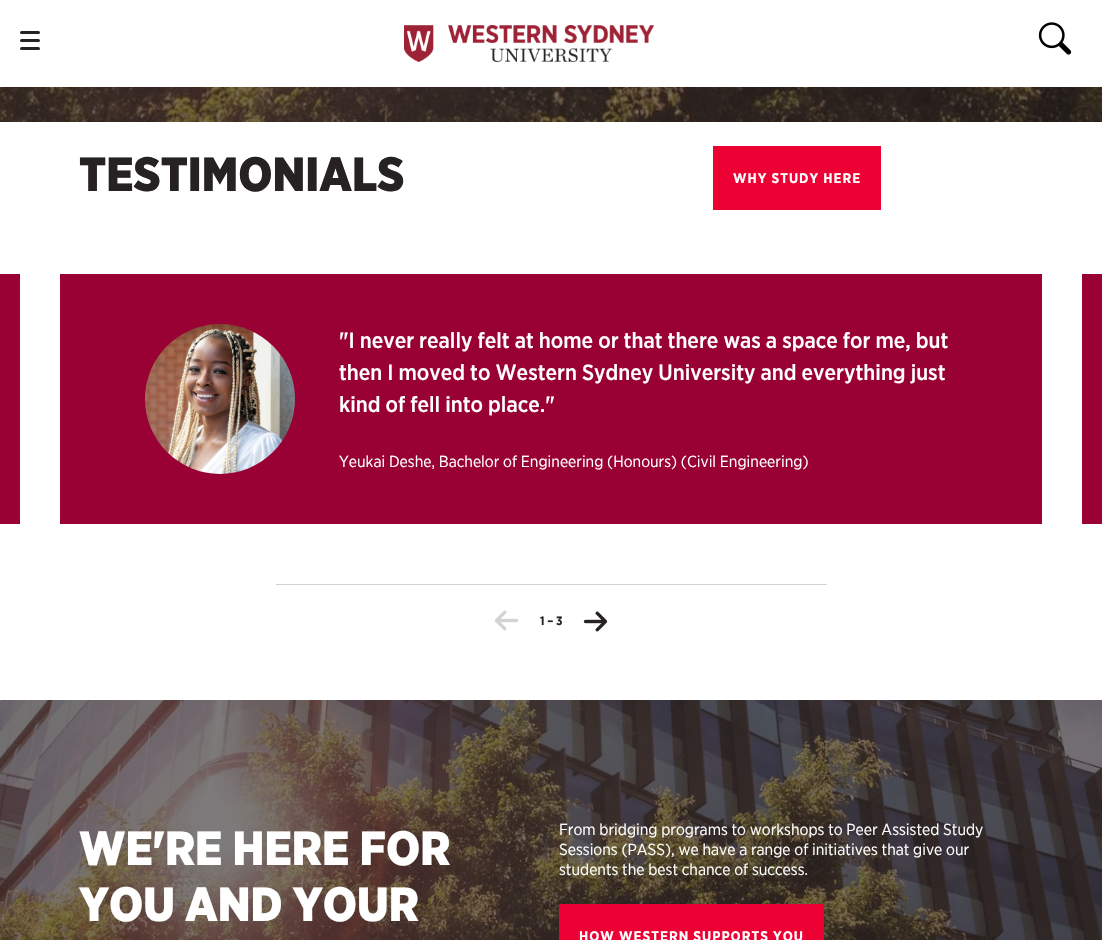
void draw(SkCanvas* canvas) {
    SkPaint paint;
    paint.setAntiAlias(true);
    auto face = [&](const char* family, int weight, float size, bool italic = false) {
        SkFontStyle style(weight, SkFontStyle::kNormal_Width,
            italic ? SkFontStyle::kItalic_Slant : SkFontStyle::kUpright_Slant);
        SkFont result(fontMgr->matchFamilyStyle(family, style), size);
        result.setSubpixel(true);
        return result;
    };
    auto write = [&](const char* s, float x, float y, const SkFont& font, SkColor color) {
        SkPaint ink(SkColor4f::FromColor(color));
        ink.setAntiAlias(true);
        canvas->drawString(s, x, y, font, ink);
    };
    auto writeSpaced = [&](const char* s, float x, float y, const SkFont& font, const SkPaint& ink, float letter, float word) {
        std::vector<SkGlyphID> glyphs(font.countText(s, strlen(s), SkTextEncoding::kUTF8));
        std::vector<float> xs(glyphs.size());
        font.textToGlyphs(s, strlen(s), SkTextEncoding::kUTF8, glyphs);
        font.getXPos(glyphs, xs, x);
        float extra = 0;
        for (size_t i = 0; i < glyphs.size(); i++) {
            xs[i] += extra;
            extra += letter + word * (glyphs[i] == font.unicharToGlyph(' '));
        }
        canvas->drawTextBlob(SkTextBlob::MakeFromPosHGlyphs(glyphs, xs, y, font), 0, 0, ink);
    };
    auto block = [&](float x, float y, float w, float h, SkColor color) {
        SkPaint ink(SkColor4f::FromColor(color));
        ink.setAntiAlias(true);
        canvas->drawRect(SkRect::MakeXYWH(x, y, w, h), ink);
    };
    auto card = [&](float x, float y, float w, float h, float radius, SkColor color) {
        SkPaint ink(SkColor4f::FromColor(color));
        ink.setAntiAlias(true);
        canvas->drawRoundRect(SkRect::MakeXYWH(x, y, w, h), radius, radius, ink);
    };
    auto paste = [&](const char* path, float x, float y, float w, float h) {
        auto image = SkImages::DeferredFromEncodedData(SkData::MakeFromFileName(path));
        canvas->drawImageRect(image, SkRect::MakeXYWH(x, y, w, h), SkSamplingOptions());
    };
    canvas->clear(SK_ColorWHITE);
    card(20, 31, 20, 3, 1.5f, SkColorSetRGB(38, 34, 35));
    card(20, 39, 20, 3, 1.5f, SkColorSetRGB(38, 34, 35));
    card(20, 47, 20, 3, 1.5f, SkColorSetRGB(38, 34, 35));
    paste("pic1.png", 404, 25, 250, 37);
    paste("pic2.png", 1038, 22, 34, 33);
    paste("pic3.png", 0, 87, 1102, 35);
    auto kFont1 = face("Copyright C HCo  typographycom", 400, 48);
    write("TESTIMONIALS", 79, 191, kFont1, SkColorSetRGB(38, 34, 35));
    block(713, 146, 168, 64, SkColorSetRGB(237, 0, 51));
    auto kFont2 = face("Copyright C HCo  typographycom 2", 400, 14);
    paint.setColor(SK_ColorWHITE);
    writeSpaced("WHY STUDY HERE", 733, 183, kFont2, paint, 1, 0);
    block(0, 274, 20, 250, SkColorSetRGB(153, 0, 51));
    block(60, 274, 982, 250, SkColorSetRGB(153, 0, 51));
    paste("pic4.png", 145, 324, 150, 150);
    auto kFont3 = face("Copyright C HCo  typographycom", 300, 22);
    write("\"I never really felt at home or that there was a space for me, but", 339, 348, kFont3, SK_ColorWHITE);
    write("then I moved to Western Sydney University and everything just", 339, 380, kFont3, SK_ColorWHITE);
    write("kind of fell into place.\"", 339, 412, kFont3, SK_ColorWHITE);
    auto kFont4 = face("Copyright C HCo  typographycom 2", 300, 16);
    write("Yeukai Deshe, Bachelor of Engineering (Honours) (Civil Engineering)", 339, 467, kFont4, SK_ColorWHITE);
    block(1082, 274, 20, 250, SkColorSetRGB(153, 0, 51));
    block(276, 584, 551, 1, SkColorSetRGB(211, 210, 210));
    paste("pic5.png", 494, 610, 25, 21);
    auto kFont5 = face("Copyright C HCo  typographycom 2", 400, 12);
    write("1 – 3", 540, 625, kFont5, SkColorSetRGB(38, 34, 35));
    paste("pic6.png", 583, 611, 25, 21);
    paste("pic7.png", 0, 700, 1102, 240);
    write("WE'RE HERE FOR", 79, 865, kFont1, SK_ColorWHITE);
    write("YOU AND YOUR", 79, 921, kFont1, SK_ColorWHITE);
    write("From bridging programs to workshops to Peer Assisted Study", 559, 835, kFont4, SK_ColorWHITE);
    write("Sessions (PASS), we have a range of initiatives that give our", 559, 855, kFont4, SK_ColorWHITE);
    write("students the best chance of success.", 559, 875, kFont4, SK_ColorWHITE);
    block(559, 904, 265, 36, SkColorSetRGB(237, 0, 51));
    writeSpaced("HOW WESTERN SUPPORTS YOU", 579, 941, kFont2, paint, 1, 0);
}
